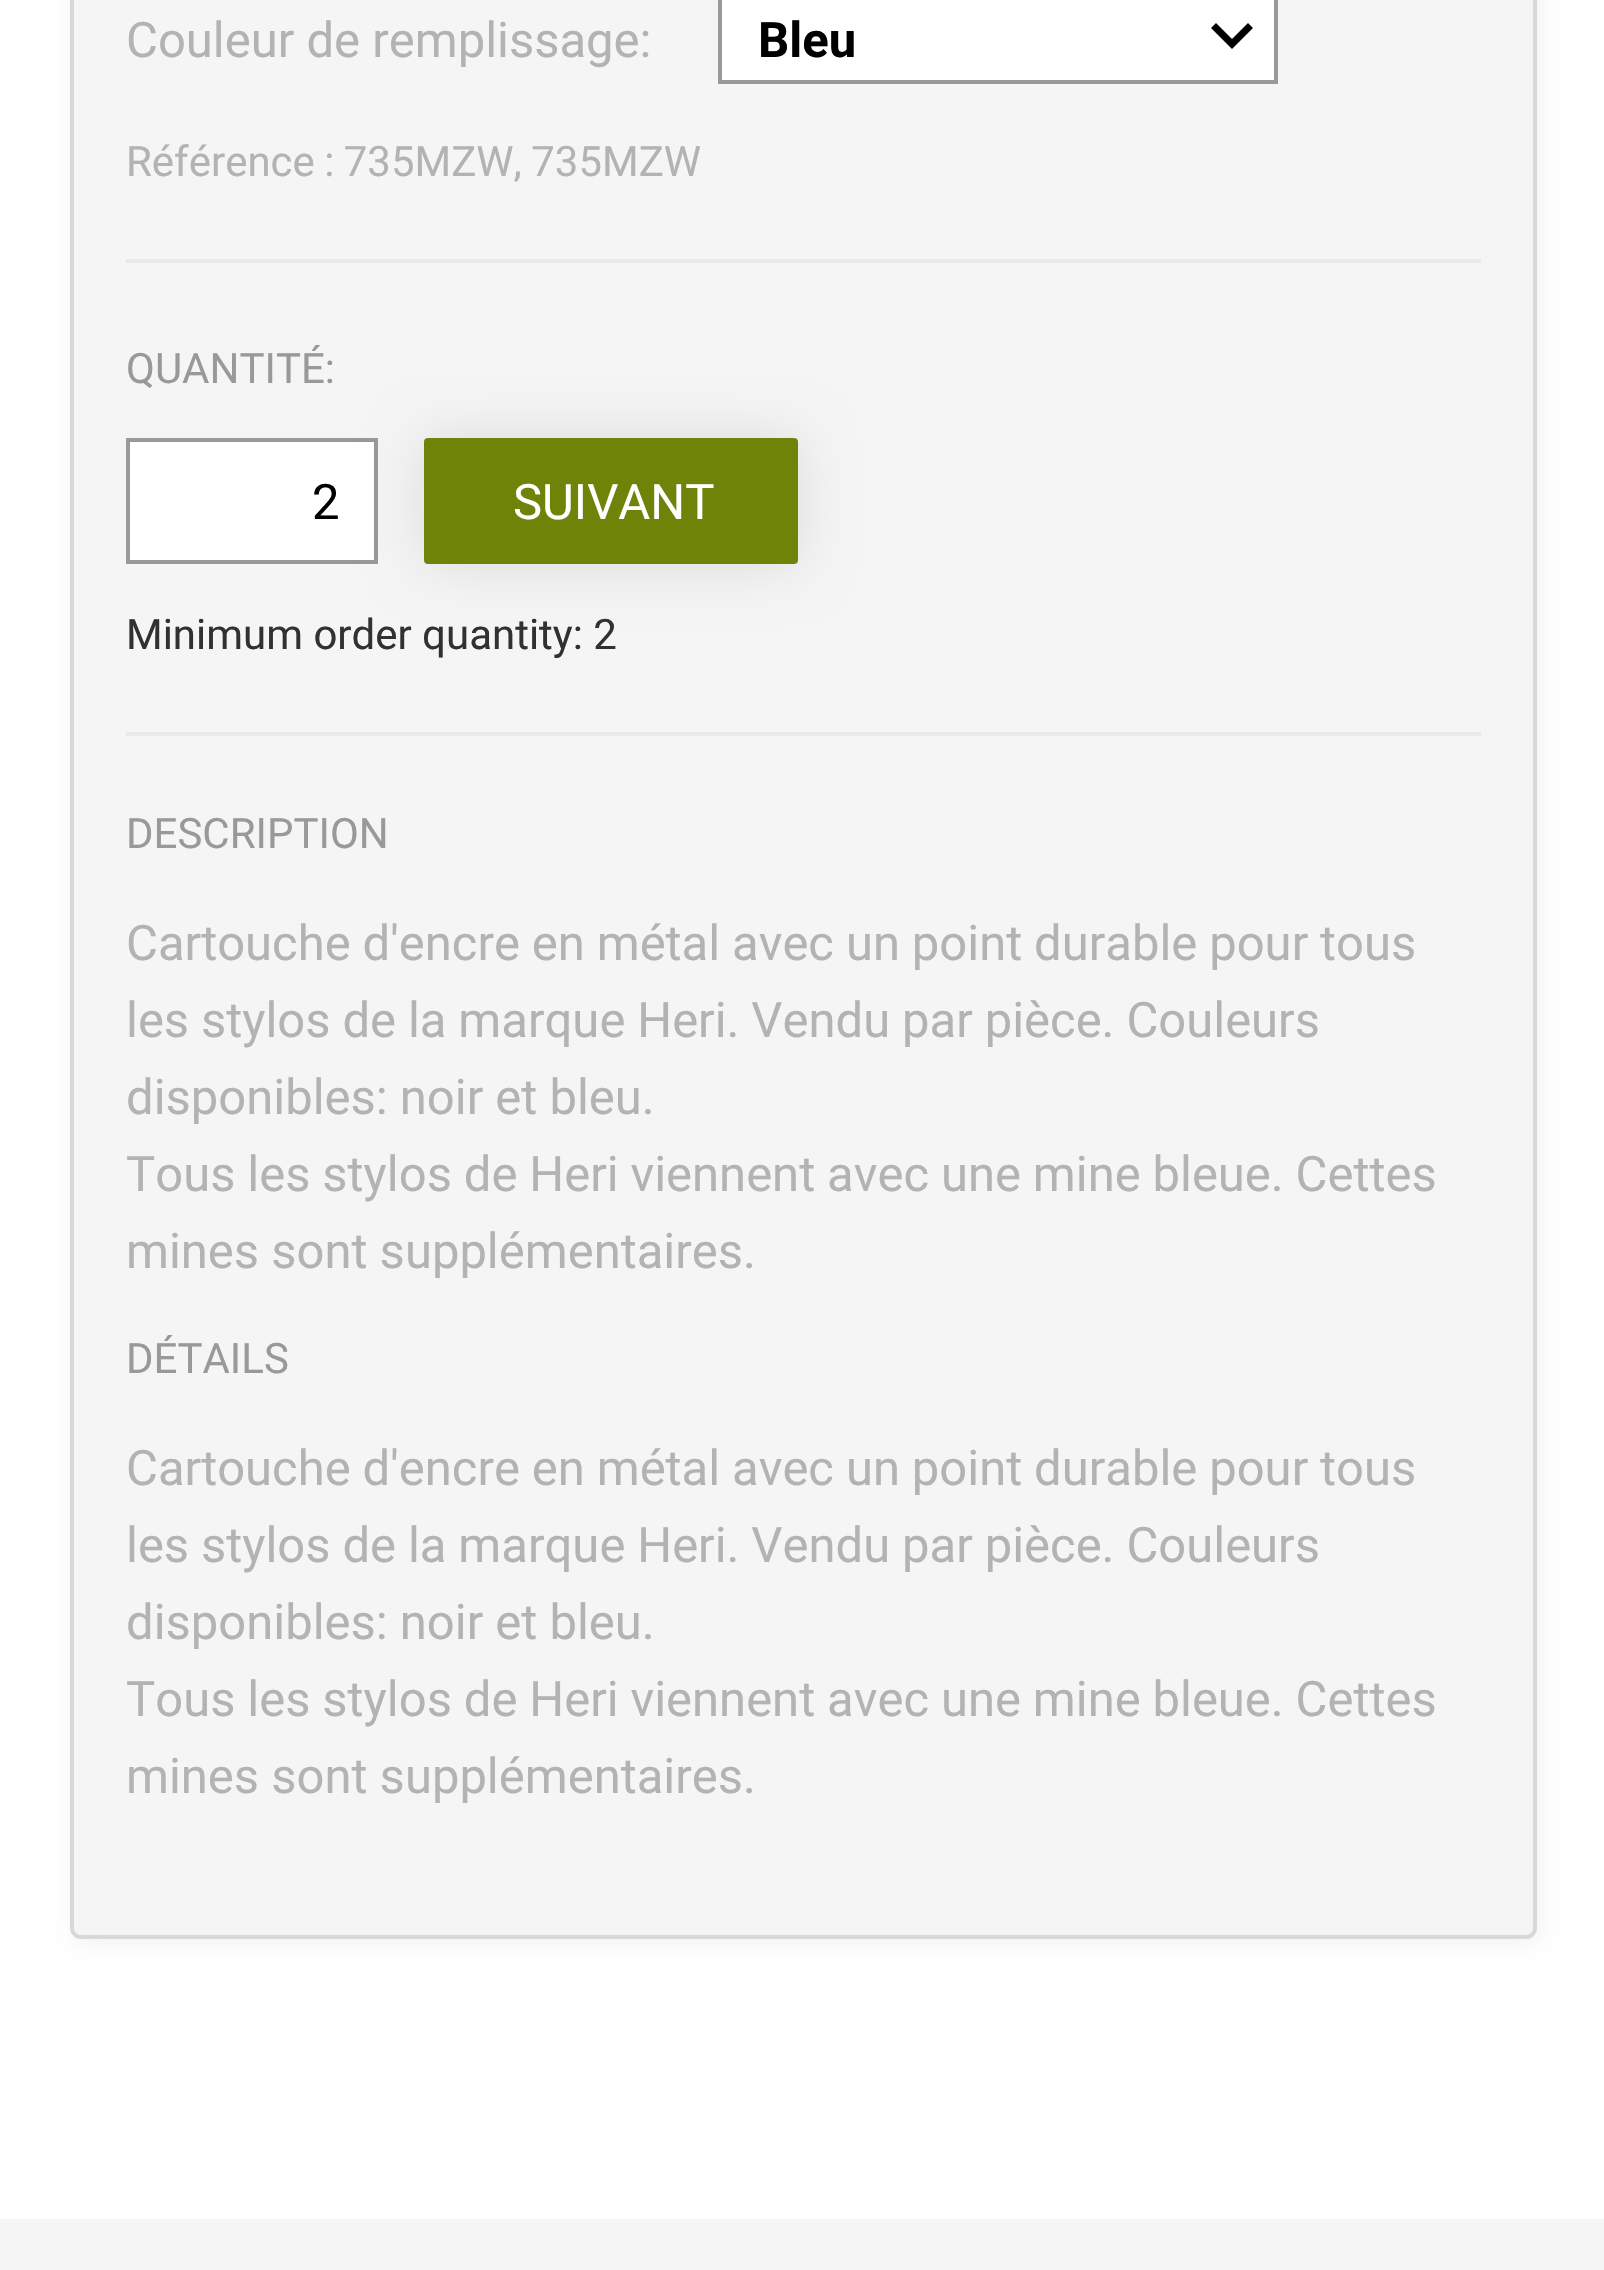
void draw(SkCanvas* canvas) {
    SkPaint paint;
    paint.setAntiAlias(true);
    auto face = [&](const char* family, int weight, float size, bool italic = false) {
        SkFontStyle style(weight, SkFontStyle::kNormal_Width,
            italic ? SkFontStyle::kItalic_Slant : SkFontStyle::kUpright_Slant);
        SkFont result(fontMgr->matchFamilyStyle(family, style), size);
        result.setSubpixel(true);
        return result;
    };
    auto write = [&](const char* s, float x, float y, const SkFont& font, SkColor color) {
        SkPaint ink(SkColor4f::FromColor(color));
        ink.setAntiAlias(true);
        canvas->drawString(s, x, y, font, ink);
    };
    auto writeSpaced = [&](const char* s, float x, float y, const SkFont& font, const SkPaint& ink, float letter, float word) {
        std::vector<SkGlyphID> glyphs(font.countText(s, strlen(s), SkTextEncoding::kUTF8));
        std::vector<float> xs(glyphs.size());
        font.textToGlyphs(s, strlen(s), SkTextEncoding::kUTF8, glyphs);
        font.getXPos(glyphs, xs, x);
        float extra = 0;
        for (size_t i = 0; i < glyphs.size(); i++) {
            xs[i] += extra;
            extra += letter + word * (glyphs[i] == font.unicharToGlyph(' '));
        }
        canvas->drawTextBlob(SkTextBlob::MakeFromPosHGlyphs(glyphs, xs, y, font), 0, 0, ink);
    };
    auto block = [&](float x, float y, float w, float h, SkColor color) {
        SkPaint ink(SkColor4f::FromColor(color));
        ink.setAntiAlias(true);
        canvas->drawRect(SkRect::MakeXYWH(x, y, w, h), ink);
    };
    canvas->clear(SK_ColorWHITE);
    paint.setColor(SkColorSetARGB(13, 0, 0, 0));
    paint.setMaskFilter(SkMaskFilter::MakeBlur(kNormal_SkBlurStyle, 10.5f));
    canvas->drawRoundRect(SkRect::MakeXYWH(74, -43, 1466, 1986), 11, 11, paint);
    paint.setMaskFilter(nullptr);
    paint.setColor(SkColorSetRGB(245, 245, 245));
    canvas->drawRoundRect(SkRect::MakeXYWH(72, -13, 1463, 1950), 9, 9, paint);
    paint.setStyle(SkPaint::kStroke_Style);
    paint.setStrokeWidth(4);
    paint.setColor(SkColorSetRGB(216, 216, 216));
    canvas->drawRoundRect(SkRect::MakeXYWH(72, -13, 1463, 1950), 9, 9, paint);
    auto kFont1 = face("Roboto", 400, 49);
    write("Couleur de remplissage:", 126, 57, kFont1, SkColorSetRGB(178, 179, 178));
    block(722, 0, 552, 80, SK_ColorWHITE);
    paint.setStyle(SkPaint::kFill_Style);
    paint.setColor(SK_ColorBLACK);
    canvas->drawPath(SkPathBuilder().moveTo(1216, 23).lineTo(1232, 39).lineTo(1248, 23).lineTo(1253, 28).lineTo(1232, 49).lineTo(1211, 28).close().detach(), paint);
    paint.setStyle(SkPaint::kStroke_Style);
    paint.setColor(SkColorSetRGB(153, 153, 153));
    canvas->drawRect(SkRect::MakeXYWH(720, -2, 556, 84), paint);
    auto kFont2 = face("Roboto", 700, 49);
    write("Bleu", 758, 57, kFont2, SK_ColorBLACK);
    auto kFont3 = face("Roboto", 400, 42);
    paint.setStyle(SkPaint::kFill_Style);
    paint.setColor(SkColorSetRGB(178, 179, 178));
    writeSpaced("Référence : 735MZW, 735MZW", 126, 176, kFont3, paint, 0, -1);
    block(126, 259, 1355, 4, SkColorSetRGB(233, 233, 233));
    write("QUANTITÉ:", 126, 383, kFont3, SkColorSetRGB(153, 153, 153));
    paint.setColor(SK_ColorWHITE);
    canvas->drawRect(SkRect::MakeXYWH(128, 440, 248, 122), paint);
    paint.setStyle(SkPaint::kStroke_Style);
    paint.setColor(SkColorSetRGB(153, 153, 153));
    canvas->drawRect(SkRect::MakeXYWH(128, 440, 248, 122), paint);
    write("2", 312, 519, kFont1, SK_ColorBLACK);
    paint.setStyle(SkPaint::kFill_Style);
    paint.setColor(SkColorSetARGB(26, 0, 0, 0));
    paint.setMaskFilter(SkMaskFilter::MakeBlur(kNormal_SkBlurStyle, 28));
    canvas->drawRoundRect(SkRect::MakeXYWH(424, 438, 374, 126), 4, 4, paint);
    paint.setMaskFilter(nullptr);
    paint.setColor(SkColorSetRGB(111, 131, 8));
    canvas->drawRoundRect(SkRect::MakeXYWH(426, 440, 370, 122), 2, 2, paint);
    paint.setStyle(SkPaint::kStroke_Style);
    canvas->drawRoundRect(SkRect::MakeXYWH(426, 440, 370, 122), 2, 2, paint);
    write("SUIVANT", 513, 519, kFont1, SK_ColorWHITE);
    write("Minimum order quantity: 2", 126, 649, kFont3, SkColorSetRGB(49, 49, 49));
    block(126, 732, 1355, 4, SkColorSetRGB(233, 233, 233));
    write("DESCRIPTION", 126, 848, kFont3, SkColorSetRGB(153, 153, 153));
    paint.setStyle(SkPaint::kFill_Style);
    paint.setColor(SkColorSetRGB(178, 179, 178));
    writeSpaced("Cartouche d'encre en métal avec un point durable pour tous", 126, 960, kFont1, paint, 0, -0.25f);
    writeSpaced("les stylos de la marque Heri. Vendu par pièce. Couleurs", 126, 1037, kFont1, paint, 0, -0.25f);
    write("disponibles: noir et bleu.", 126, 1114, kFont1, SkColorSetRGB(178, 179, 178));
    writeSpaced("Tous les stylos de Heri viennent avec une mine bleue. Cettes", 126, 1191, kFont1, paint, 0, -0.25f);
    write("mines sont supplémentaires.", 126, 1268, kFont1, SkColorSetRGB(178, 179, 178));
    write("DÉTAILS", 126, 1373, kFont3, SkColorSetRGB(153, 153, 153));
    writeSpaced("Cartouche d'encre en métal avec un point durable pour tous", 126, 1485, kFont1, paint, 0, -0.25f);
    writeSpaced("les stylos de la marque Heri. Vendu par pièce. Couleurs", 126, 1562, kFont1, paint, 0, -0.25f);
    write("disponibles: noir et bleu.", 126, 1639, kFont1, SkColorSetRGB(178, 179, 178));
    writeSpaced("Tous les stylos de Heri viennent avec une mine bleue. Cettes", 126, 1716, kFont1, paint, 0, -0.25f);
    write("mines sont supplémentaires.", 126, 1793, kFont1, SkColorSetRGB(178, 179, 178));
    block(0, 2219, 1604, 51, SkColorSetRGB(245, 245, 245));
}
